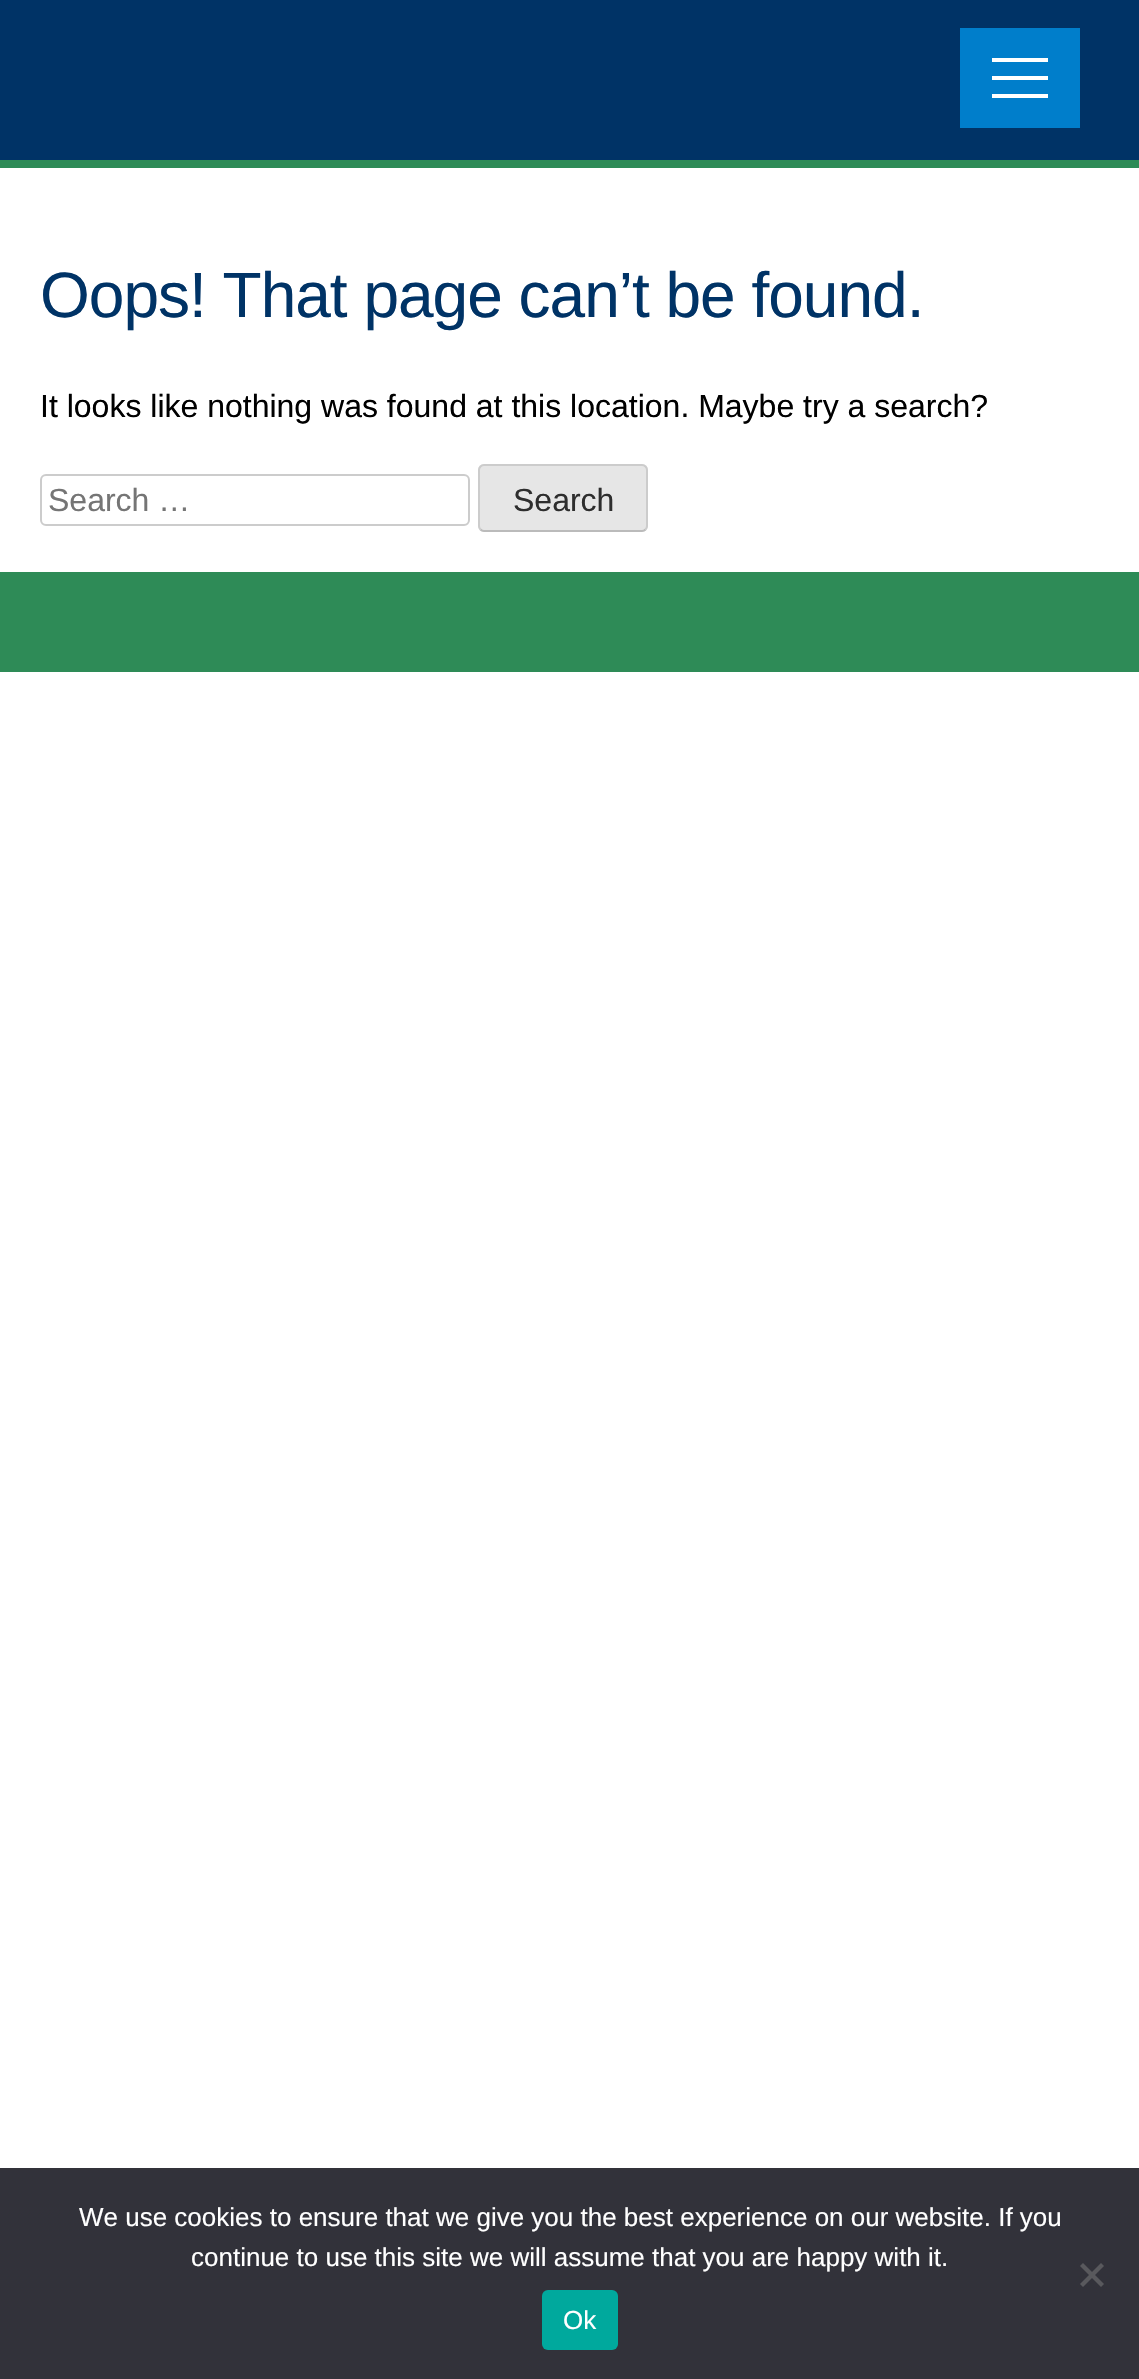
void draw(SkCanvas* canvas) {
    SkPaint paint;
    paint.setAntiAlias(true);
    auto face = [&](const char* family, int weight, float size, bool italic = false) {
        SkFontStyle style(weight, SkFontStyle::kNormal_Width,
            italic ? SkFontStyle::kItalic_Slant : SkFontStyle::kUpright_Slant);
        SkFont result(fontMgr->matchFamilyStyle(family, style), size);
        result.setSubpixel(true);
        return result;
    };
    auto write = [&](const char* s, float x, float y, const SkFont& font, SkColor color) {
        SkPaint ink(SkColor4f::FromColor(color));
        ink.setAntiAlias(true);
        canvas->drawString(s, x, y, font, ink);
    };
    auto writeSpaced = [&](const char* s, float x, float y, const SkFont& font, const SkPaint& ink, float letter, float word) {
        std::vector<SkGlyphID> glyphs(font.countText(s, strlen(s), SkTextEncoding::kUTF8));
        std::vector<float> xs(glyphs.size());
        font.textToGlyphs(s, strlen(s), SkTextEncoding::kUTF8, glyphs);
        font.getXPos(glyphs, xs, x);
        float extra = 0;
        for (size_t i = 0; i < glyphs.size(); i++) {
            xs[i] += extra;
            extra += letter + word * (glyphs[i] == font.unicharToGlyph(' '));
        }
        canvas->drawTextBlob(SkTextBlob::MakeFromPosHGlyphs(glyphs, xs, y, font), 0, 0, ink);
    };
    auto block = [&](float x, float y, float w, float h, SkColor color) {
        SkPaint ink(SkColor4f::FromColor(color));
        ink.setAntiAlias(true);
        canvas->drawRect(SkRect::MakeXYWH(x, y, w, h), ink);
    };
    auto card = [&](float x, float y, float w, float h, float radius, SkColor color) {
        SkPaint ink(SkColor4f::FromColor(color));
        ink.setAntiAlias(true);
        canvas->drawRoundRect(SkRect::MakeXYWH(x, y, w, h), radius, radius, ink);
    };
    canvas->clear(SK_ColorWHITE);
    block(0, 0, 1139, 160, SkColorSetRGB(0, 51, 102));
    block(960, 28, 120, 100, SkColorSetRGB(0, 126, 203));
    block(992, 58, 56, 4, SK_ColorWHITE);
    block(992, 76, 56, 4, SK_ColorWHITE);
    block(992, 94, 56, 4, SK_ColorWHITE);
    block(0, 160, 1139, 8, SkColorSetRGB(46, 139, 87));
    auto kFont1 = face("Liberation Sans", 400, 64);
    paint.setColor(SkColorSetRGB(0, 51, 102));
    writeSpaced("Oops! That page can’t be found.", 40, 317, kFont1, paint, -1, 0);
    auto kFont2 = face("Liberation Sans", 400, 32);
    write("It looks like nothing was found at this location. Maybe try a search?", 40, 417, kFont2, SK_ColorBLACK);
    paint.setStyle(SkPaint::kStroke_Style);
    paint.setStrokeWidth(2);
    paint.setColor(SkColorSetRGB(204, 204, 204));
    canvas->drawRoundRect(SkRect::MakeXYWH(41, 475, 428, 50), 5, 5, paint);
    write("Search …", 48, 511, kFont2, SkColorSetRGB(117, 117, 117));
    card(478, 464, 170, 68, 6, SkColorSetRGB(230, 230, 230));
    paint.setColor(SkColorSetRGB(187, 187, 187));
    canvas->drawPath(SkPathBuilder().moveTo(645.5f, 529.5f).cubicTo(644.5f, 530.5f, 643.5f, 531, 642, 531).lineTo(484, 531).cubicTo(482.5f, 531, 481.5f, 530.5f, 480.5f, 529.5f).detach(), paint);
    paint.setColor(SkColorSetRGB(204, 204, 204));
    canvas->drawPath(SkPathBuilder().moveTo(480.5f, 529.5f).cubicTo(479.5f, 528.5f, 479, 527.5f, 479, 526).lineTo(479, 470).cubicTo(479, 468.5f, 479.5f, 467.5f, 480.5f, 466.5f).cubicTo(481.5f, 465.5f, 482.5f, 465, 484, 465).lineTo(642, 465).cubicTo(643.5f, 465, 644.5f, 465.5f, 645.5f, 466.5f).cubicTo(646.5f, 467.5f, 647, 468.5f, 647, 470).lineTo(647, 526).cubicTo(647, 527.5f, 646.5f, 528.5f, 645.5f, 529.5f).detach(), paint);
    write("Search", 513, 511, kFont2, SkColorSetRGB(46, 46, 46));
    block(0, 572, 1139, 100, SkColorSetRGB(46, 139, 87));
    block(0, 2168, 1139, 211, SkColorSetRGB(50, 50, 58));
    auto kFont3 = face("Liberation Sans", 400, 26);
    write("We use cookies to ensure that we give you the best experience on our website. If you", 79, 2226, kFont3, SK_ColorWHITE);
    write("continue to use this site we will assume that you are happy with it.", 191, 2266, kFont3, SK_ColorWHITE);
    paint.setStyle(SkPaint::kFill_Style);
    paint.setColor(SkColorSetRGB(89, 89, 93));
    canvas->drawPath(SkPathBuilder().moveTo(1101, 2263).lineTo(1104, 2266).lineTo(1083, 2287).lineTo(1080, 2284).close().detach(), paint);
    canvas->drawPath(SkPathBuilder().moveTo(1080, 2266).lineTo(1083, 2263).lineTo(1104, 2284).lineTo(1101, 2287).close().detach(), paint);
    card(542, 2290, 76, 60, 6, SkColorSetRGB(0, 169, 157));
    write("Ok", 563, 2329, kFont3, SK_ColorWHITE);
}
